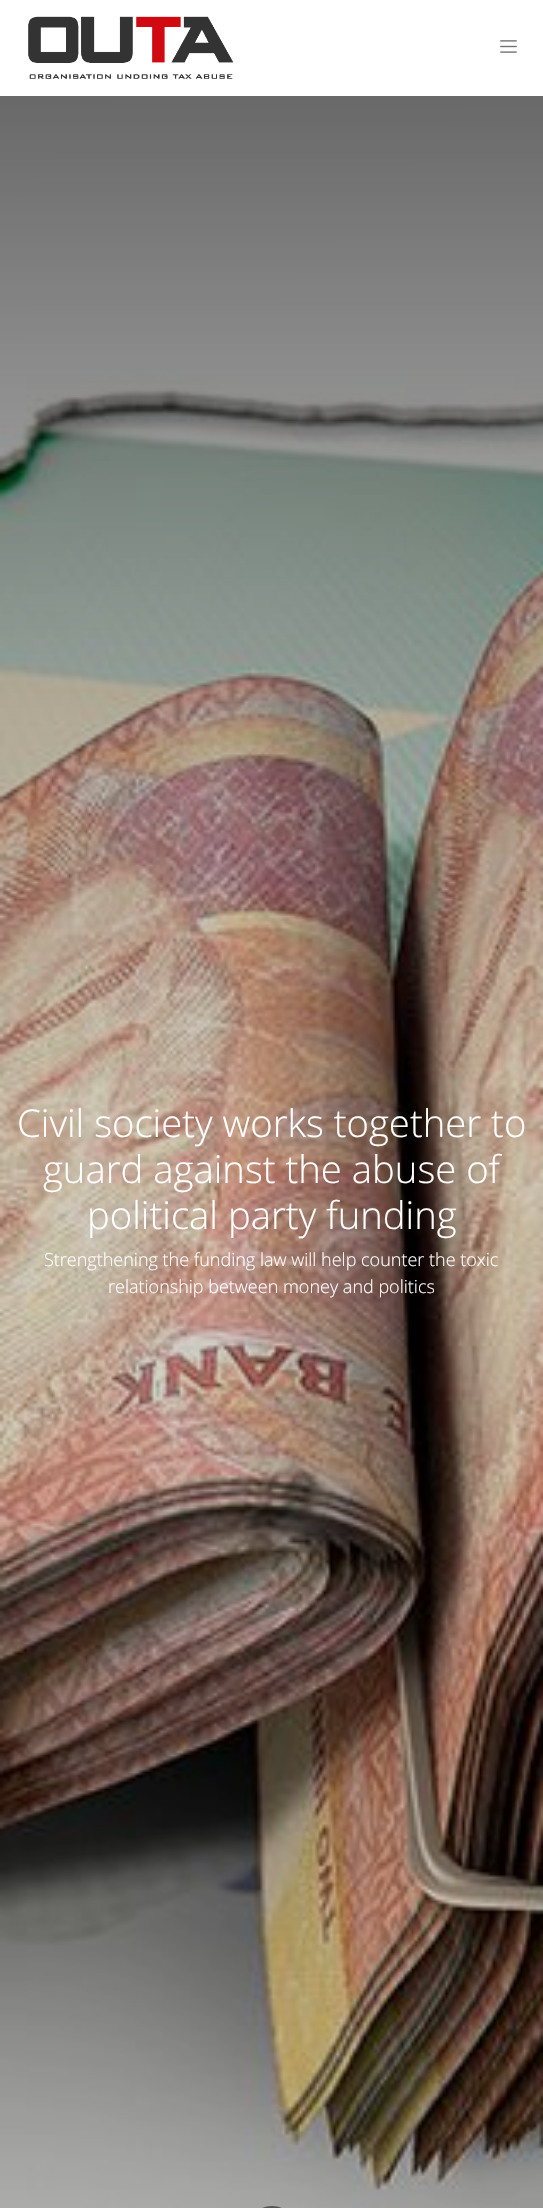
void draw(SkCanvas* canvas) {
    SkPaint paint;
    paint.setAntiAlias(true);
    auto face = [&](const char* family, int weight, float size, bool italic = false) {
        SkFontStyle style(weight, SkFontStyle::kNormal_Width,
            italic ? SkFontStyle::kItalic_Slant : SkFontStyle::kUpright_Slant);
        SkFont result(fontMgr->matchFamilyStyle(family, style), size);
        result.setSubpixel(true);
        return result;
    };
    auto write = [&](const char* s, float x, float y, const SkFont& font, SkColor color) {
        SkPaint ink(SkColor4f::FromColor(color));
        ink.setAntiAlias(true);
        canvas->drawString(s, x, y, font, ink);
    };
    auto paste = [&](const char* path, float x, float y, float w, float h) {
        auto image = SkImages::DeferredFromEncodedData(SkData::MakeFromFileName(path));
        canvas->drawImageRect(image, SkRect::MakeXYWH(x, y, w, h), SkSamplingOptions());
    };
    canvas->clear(SK_ColorWHITE);
    paste("pic1.png", 28, 16, 206, 63);
    paste("pic2.png", 500, 40, 17, 13);
    paste("pic3.png", 0, 96, 543, 2112);
    auto kFont1 = face("Open Sans", 300, 38.25f);
    write("Civil society works together to", 17, 1137, kFont1, SK_ColorWHITE);
    write("guard against the abuse of", 43, 1183, kFont1, SK_ColorWHITE);
    write("political party funding", 87, 1229, kFont1, SK_ColorWHITE);
    auto kFont2 = face("Open Sans", 300, 18);
    write("Strengthening the funding law will help counter the toxic", 44, 1266, kFont2, SK_ColorWHITE);
    write("relationship between money and politics", 108, 1293, kFont2, SK_ColorWHITE);
    paint.setColor(SkColorSetRGB(83, 83, 82));
    canvas->drawPath(SkPathBuilder().moveTo(272, 2206).cubicTo(286, 2206, 297, 2217, 297, 2231).lineTo(297, 2208).lineTo(247, 2208).lineTo(247, 2231).cubicTo(247, 2217, 258, 2206, 272, 2206).close().detach(), paint);
}
